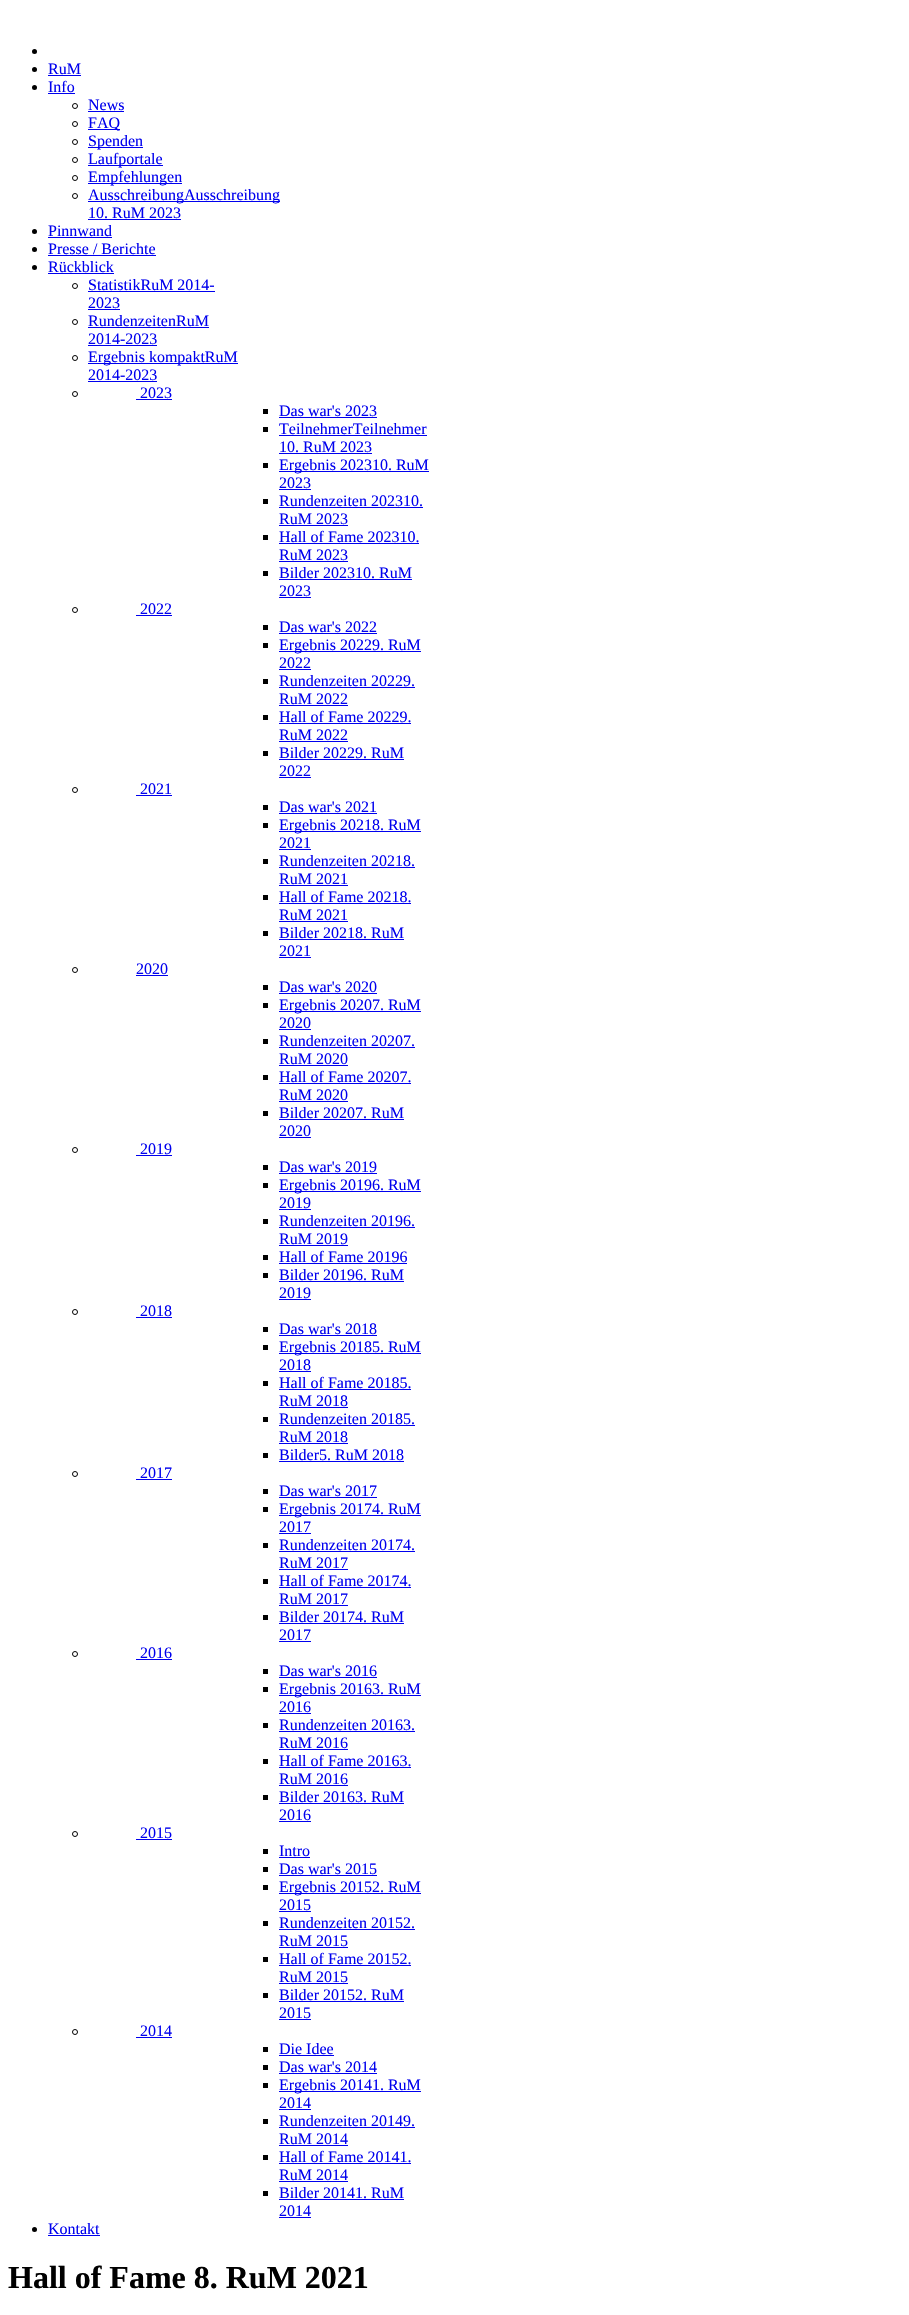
void draw(SkCanvas* canvas) {
    SkPaint paint;
    paint.setAntiAlias(true);
    auto face = [&](const char* family, int weight, float size, bool italic = false) {
        SkFontStyle style(weight, SkFontStyle::kNormal_Width,
            italic ? SkFontStyle::kItalic_Slant : SkFontStyle::kUpright_Slant);
        SkFont result(fontMgr->matchFamilyStyle(family, style), size);
        result.setSubpixel(true);
        return result;
    };
    auto write = [&](const char* s, float x, float y, const SkFont& font, SkColor color) {
        SkPaint ink(SkColor4f::FromColor(color));
        ink.setAntiAlias(true);
        canvas->drawString(s, x, y, font, ink);
    };
    auto block = [&](float x, float y, float w, float h, SkColor color) {
        SkPaint ink(SkColor4f::FromColor(color));
        ink.setAntiAlias(true);
        canvas->drawRect(SkRect::MakeXYWH(x, y, w, h), ink);
    };
    canvas->clear(SK_ColorWHITE);
    paint.setColor(SK_ColorBLACK);
    canvas->drawCircle(34.5f, 51.5f, 2.5f, paint);
    canvas->drawCircle(34.5f, 69.5f, 2.5f, paint);
    auto kFont1 = face("Liberation Serif", 400, 16);
    write("RuM", 48, 74, kFont1, SkColorSetRGB(0, 0, 238));
    block(48, 75, 33, 1, SkColorSetRGB(0, 0, 238));
    canvas->drawCircle(34.5f, 87.5f, 2.5f, paint);
    write("Info", 48, 92, kFont1, SkColorSetRGB(0, 0, 238));
    block(48, 93, 27, 1, SkColorSetRGB(0, 0, 238));
    paint.setStyle(SkPaint::kStroke_Style);
    paint.setStrokeWidth(1);
    canvas->drawCircle(75, 106, 2.5f, paint);
    write("News", 88, 110, kFont1, SkColorSetRGB(0, 0, 238));
    block(88, 111, 36, 1, SkColorSetRGB(0, 0, 238));
    canvas->drawCircle(75, 124, 2.5f, paint);
    block(88, 129, 32, 1, SkColorSetRGB(0, 0, 238));
    write("FAQ", 88, 128, kFont1, SkColorSetRGB(0, 0, 238));
    canvas->drawCircle(75, 142, 2.5f, paint);
    block(88, 147, 55, 1, SkColorSetRGB(0, 0, 238));
    write("Spenden", 88, 146, kFont1, SkColorSetRGB(0, 0, 238));
    canvas->drawCircle(75, 160, 2.5f, paint);
    block(88, 165, 75, 1, SkColorSetRGB(0, 0, 238));
    write("Laufportale", 88, 164, kFont1, SkColorSetRGB(0, 0, 238));
    canvas->drawCircle(75, 178, 2.5f, paint);
    block(88, 183, 94, 1, SkColorSetRGB(0, 0, 238));
    write("Empfehlungen", 88, 182, kFont1, SkColorSetRGB(0, 0, 238));
    canvas->drawCircle(75, 196, 2.5f, paint);
    block(88, 201, 192, 1, SkColorSetRGB(0, 0, 238));
    write("AusschreibungAusschreibung", 88, 200, kFont1, SkColorSetRGB(0, 0, 238));
    write("10. RuM 2023", 88, 218, kFont1, SkColorSetRGB(0, 0, 238));
    block(88, 219, 93, 1, SkColorSetRGB(0, 0, 238));
    paint.setStyle(SkPaint::kFill_Style);
    canvas->drawCircle(34.5f, 231.5f, 2.5f, paint);
    write("Pinnwand", 48, 236, kFont1, SkColorSetRGB(0, 0, 238));
    block(48, 237, 64, 1, SkColorSetRGB(0, 0, 238));
    canvas->drawCircle(34.5f, 249.5f, 2.5f, paint);
    write("Presse / Berichte", 48, 254, kFont1, SkColorSetRGB(0, 0, 238));
    block(48, 255, 108, 1, SkColorSetRGB(0, 0, 238));
    canvas->drawCircle(34.5f, 267.5f, 2.5f, paint);
    write("Rückblick", 48, 272, kFont1, SkColorSetRGB(0, 0, 238));
    block(48, 273, 66, 1, SkColorSetRGB(0, 0, 238));
    paint.setStyle(SkPaint::kStroke_Style);
    canvas->drawCircle(75, 286, 2.5f, paint);
    write("StatistikRuM 2014-", 88, 290, kFont1, SkColorSetRGB(0, 0, 238));
    block(88, 291, 127, 1, SkColorSetRGB(0, 0, 238));
    write("2023", 88, 308, kFont1, SkColorSetRGB(0, 0, 238));
    block(88, 309, 32, 1, SkColorSetRGB(0, 0, 238));
    canvas->drawCircle(75, 322, 2.5f, paint);
    write("RundenzeitenRuM", 88, 326, kFont1, SkColorSetRGB(0, 0, 238));
    block(88, 327, 121, 1, SkColorSetRGB(0, 0, 238));
    write("2014-2023", 88, 344, kFont1, SkColorSetRGB(0, 0, 238));
    block(88, 345, 69, 1, SkColorSetRGB(0, 0, 238));
    canvas->drawCircle(75, 358, 2.5f, paint);
    block(88, 363, 150, 1, SkColorSetRGB(0, 0, 238));
    write("Ergebnis kompaktRuM", 88, 362, kFont1, SkColorSetRGB(0, 0, 238));
    write("2014-2023", 88, 380, kFont1, SkColorSetRGB(0, 0, 238));
    block(88, 381, 69, 1, SkColorSetRGB(0, 0, 238));
    canvas->drawCircle(75, 394, 2.5f, paint);
    write("2023", 140, 398, kFont1, SkColorSetRGB(0, 0, 238));
    block(136, 399, 36, 1, SkColorSetRGB(0, 0, 238));
    block(263, 409, 5, 5, SK_ColorBLACK);
    write("Das war's 2023", 279, 416, kFont1, SkColorSetRGB(0, 0, 238));
    block(279, 417, 98, 1, SkColorSetRGB(0, 0, 238));
    block(263, 427, 5, 5, SK_ColorBLACK);
    write("TeilnehmerTeilnehmer", 279, 434, kFont1, SkColorSetRGB(0, 0, 238));
    block(279, 435, 148, 1, SkColorSetRGB(0, 0, 238));
    write("10. RuM 2023", 279, 452, kFont1, SkColorSetRGB(0, 0, 238));
    block(279, 453, 93, 1, SkColorSetRGB(0, 0, 238));
    block(263, 463, 5, 5, SK_ColorBLACK);
    block(279, 471, 150, 1, SkColorSetRGB(0, 0, 238));
    write("Ergebnis 202310. RuM", 279, 470, kFont1, SkColorSetRGB(0, 0, 238));
    write("2023", 279, 488, kFont1, SkColorSetRGB(0, 0, 238));
    block(279, 489, 32, 1, SkColorSetRGB(0, 0, 238));
    block(263, 499, 5, 5, SK_ColorBLACK);
    write("Rundenzeiten 202310.", 279, 506, kFont1, SkColorSetRGB(0, 0, 238));
    block(279, 507, 144, 1, SkColorSetRGB(0, 0, 238));
    write("RuM 2023", 279, 524, kFont1, SkColorSetRGB(0, 0, 238));
    block(279, 525, 69, 1, SkColorSetRGB(0, 0, 238));
    block(263, 535, 5, 5, SK_ColorBLACK);
    write("Hall of Fame 202310.", 279, 542, kFont1, SkColorSetRGB(0, 0, 238));
    block(279, 543, 140, 1, SkColorSetRGB(0, 0, 238));
    write("RuM 2023", 279, 560, kFont1, SkColorSetRGB(0, 0, 238));
    block(279, 561, 69, 1, SkColorSetRGB(0, 0, 238));
    block(263, 571, 5, 5, SK_ColorBLACK);
    write("Bilder 202310. RuM", 279, 578, kFont1, SkColorSetRGB(0, 0, 238));
    block(279, 579, 133, 1, SkColorSetRGB(0, 0, 238));
    write("2023", 279, 596, kFont1, SkColorSetRGB(0, 0, 238));
    block(279, 597, 32, 1, SkColorSetRGB(0, 0, 238));
    canvas->drawCircle(75, 610, 2.5f, paint);
    write("2022", 140, 614, kFont1, SkColorSetRGB(0, 0, 238));
    block(136, 615, 36, 1, SkColorSetRGB(0, 0, 238));
    block(263, 625, 5, 5, SK_ColorBLACK);
    write("Das war's 2022", 279, 632, kFont1, SkColorSetRGB(0, 0, 238));
    block(279, 633, 98, 1, SkColorSetRGB(0, 0, 238));
    block(263, 643, 5, 5, SK_ColorBLACK);
    block(279, 651, 142, 1, SkColorSetRGB(0, 0, 238));
    write("Ergebnis 20229. RuM", 279, 650, kFont1, SkColorSetRGB(0, 0, 238));
    write("2022", 279, 668, kFont1, SkColorSetRGB(0, 0, 238));
    block(279, 669, 32, 1, SkColorSetRGB(0, 0, 238));
    block(263, 679, 5, 5, SK_ColorBLACK);
    write("Rundenzeiten 20229.", 279, 686, kFont1, SkColorSetRGB(0, 0, 238));
    block(279, 687, 136, 1, SkColorSetRGB(0, 0, 238));
    write("RuM 2022", 279, 704, kFont1, SkColorSetRGB(0, 0, 238));
    block(279, 705, 69, 1, SkColorSetRGB(0, 0, 238));
    block(263, 715, 5, 5, SK_ColorBLACK);
    write("Hall of Fame 20229.", 279, 722, kFont1, SkColorSetRGB(0, 0, 238));
    block(279, 723, 132, 1, SkColorSetRGB(0, 0, 238));
    write("RuM 2022", 279, 740, kFont1, SkColorSetRGB(0, 0, 238));
    block(279, 741, 69, 1, SkColorSetRGB(0, 0, 238));
    block(263, 751, 5, 5, SK_ColorBLACK);
    write("Bilder 20229. RuM", 279, 758, kFont1, SkColorSetRGB(0, 0, 238));
    block(279, 759, 125, 1, SkColorSetRGB(0, 0, 238));
    write("2022", 279, 776, kFont1, SkColorSetRGB(0, 0, 238));
    block(279, 777, 32, 1, SkColorSetRGB(0, 0, 238));
    canvas->drawCircle(75, 790, 2.5f, paint);
    write("2021", 140, 794, kFont1, SkColorSetRGB(0, 0, 238));
    block(136, 795, 36, 1, SkColorSetRGB(0, 0, 238));
    block(263, 805, 5, 5, SK_ColorBLACK);
    write("Das war's 2021", 279, 812, kFont1, SkColorSetRGB(0, 0, 238));
    block(279, 813, 98, 1, SkColorSetRGB(0, 0, 238));
    block(263, 823, 5, 5, SK_ColorBLACK);
    block(279, 831, 142, 1, SkColorSetRGB(0, 0, 238));
    write("Ergebnis 20218. RuM", 279, 830, kFont1, SkColorSetRGB(0, 0, 238));
    write("2021", 279, 848, kFont1, SkColorSetRGB(0, 0, 238));
    block(279, 849, 32, 1, SkColorSetRGB(0, 0, 238));
    block(263, 859, 5, 5, SK_ColorBLACK);
    write("Rundenzeiten 20218.", 279, 866, kFont1, SkColorSetRGB(0, 0, 238));
    block(279, 867, 136, 1, SkColorSetRGB(0, 0, 238));
    write("RuM 2021", 279, 884, kFont1, SkColorSetRGB(0, 0, 238));
    block(279, 885, 69, 1, SkColorSetRGB(0, 0, 238));
    block(263, 895, 5, 5, SK_ColorBLACK);
    write("Hall of Fame 20218.", 279, 902, kFont1, SkColorSetRGB(0, 0, 238));
    block(279, 903, 132, 1, SkColorSetRGB(0, 0, 238));
    write("RuM 2021", 279, 920, kFont1, SkColorSetRGB(0, 0, 238));
    block(279, 921, 69, 1, SkColorSetRGB(0, 0, 238));
    block(263, 931, 5, 5, SK_ColorBLACK);
    write("Bilder 20218. RuM", 279, 938, kFont1, SkColorSetRGB(0, 0, 238));
    block(279, 939, 125, 1, SkColorSetRGB(0, 0, 238));
    write("2021", 279, 956, kFont1, SkColorSetRGB(0, 0, 238));
    block(279, 957, 32, 1, SkColorSetRGB(0, 0, 238));
    canvas->drawCircle(75, 970, 2.5f, paint);
    write("2020", 136, 974, kFont1, SkColorSetRGB(0, 0, 238));
    block(136, 975, 32, 1, SkColorSetRGB(0, 0, 238));
    block(263, 985, 5, 5, SK_ColorBLACK);
    write("Das war's 2020", 279, 992, kFont1, SkColorSetRGB(0, 0, 238));
    block(279, 993, 98, 1, SkColorSetRGB(0, 0, 238));
    block(263, 1003, 5, 5, SK_ColorBLACK);
    block(279, 1011, 142, 1, SkColorSetRGB(0, 0, 238));
    write("Ergebnis 20207. RuM", 279, 1010, kFont1, SkColorSetRGB(0, 0, 238));
    write("2020", 279, 1028, kFont1, SkColorSetRGB(0, 0, 238));
    block(279, 1029, 32, 1, SkColorSetRGB(0, 0, 238));
    block(263, 1039, 5, 5, SK_ColorBLACK);
    write("Rundenzeiten 20207.", 279, 1046, kFont1, SkColorSetRGB(0, 0, 238));
    block(279, 1047, 136, 1, SkColorSetRGB(0, 0, 238));
    write("RuM 2020", 279, 1064, kFont1, SkColorSetRGB(0, 0, 238));
    block(279, 1065, 69, 1, SkColorSetRGB(0, 0, 238));
    block(263, 1075, 5, 5, SK_ColorBLACK);
    write("Hall of Fame 20207.", 279, 1082, kFont1, SkColorSetRGB(0, 0, 238));
    block(279, 1083, 132, 1, SkColorSetRGB(0, 0, 238));
    write("RuM 2020", 279, 1100, kFont1, SkColorSetRGB(0, 0, 238));
    block(279, 1101, 69, 1, SkColorSetRGB(0, 0, 238));
    block(263, 1111, 5, 5, SK_ColorBLACK);
    write("Bilder 20207. RuM", 279, 1118, kFont1, SkColorSetRGB(0, 0, 238));
    block(279, 1119, 125, 1, SkColorSetRGB(0, 0, 238));
    write("2020", 279, 1136, kFont1, SkColorSetRGB(0, 0, 238));
    block(279, 1137, 32, 1, SkColorSetRGB(0, 0, 238));
    canvas->drawCircle(75, 1150, 2.5f, paint);
    write("2019", 140, 1154, kFont1, SkColorSetRGB(0, 0, 238));
    block(136, 1155, 36, 1, SkColorSetRGB(0, 0, 238));
    block(263, 1165, 5, 5, SK_ColorBLACK);
    write("Das war's 2019", 279, 1172, kFont1, SkColorSetRGB(0, 0, 238));
    block(279, 1173, 98, 1, SkColorSetRGB(0, 0, 238));
    block(263, 1183, 5, 5, SK_ColorBLACK);
    block(279, 1191, 142, 1, SkColorSetRGB(0, 0, 238));
    write("Ergebnis 20196. RuM", 279, 1190, kFont1, SkColorSetRGB(0, 0, 238));
    write("2019", 279, 1208, kFont1, SkColorSetRGB(0, 0, 238));
    block(279, 1209, 32, 1, SkColorSetRGB(0, 0, 238));
    block(263, 1219, 5, 5, SK_ColorBLACK);
    write("Rundenzeiten 20196.", 279, 1226, kFont1, SkColorSetRGB(0, 0, 238));
    block(279, 1227, 136, 1, SkColorSetRGB(0, 0, 238));
    write("RuM 2019", 279, 1244, kFont1, SkColorSetRGB(0, 0, 238));
    block(279, 1245, 69, 1, SkColorSetRGB(0, 0, 238));
    block(263, 1255, 5, 5, SK_ColorBLACK);
    write("Hall of Fame 20196", 279, 1262, kFont1, SkColorSetRGB(0, 0, 238));
    block(279, 1263, 128, 1, SkColorSetRGB(0, 0, 238));
    block(263, 1273, 5, 5, SK_ColorBLACK);
    write("Bilder 20196. RuM", 279, 1280, kFont1, SkColorSetRGB(0, 0, 238));
    block(279, 1281, 125, 1, SkColorSetRGB(0, 0, 238));
    write("2019", 279, 1298, kFont1, SkColorSetRGB(0, 0, 238));
    block(279, 1299, 32, 1, SkColorSetRGB(0, 0, 238));
    canvas->drawCircle(75, 1312, 2.5f, paint);
    write("2018", 140, 1316, kFont1, SkColorSetRGB(0, 0, 238));
    block(136, 1317, 36, 1, SkColorSetRGB(0, 0, 238));
    block(263, 1327, 5, 5, SK_ColorBLACK);
    write("Das war's 2018", 279, 1334, kFont1, SkColorSetRGB(0, 0, 238));
    block(279, 1335, 98, 1, SkColorSetRGB(0, 0, 238));
    block(263, 1345, 5, 5, SK_ColorBLACK);
    block(279, 1353, 142, 1, SkColorSetRGB(0, 0, 238));
    write("Ergebnis 20185. RuM", 279, 1352, kFont1, SkColorSetRGB(0, 0, 238));
    write("2018", 279, 1370, kFont1, SkColorSetRGB(0, 0, 238));
    block(279, 1371, 32, 1, SkColorSetRGB(0, 0, 238));
    block(263, 1381, 5, 5, SK_ColorBLACK);
    write("Hall of Fame 20185.", 279, 1388, kFont1, SkColorSetRGB(0, 0, 238));
    block(279, 1389, 132, 1, SkColorSetRGB(0, 0, 238));
    write("RuM 2018", 279, 1406, kFont1, SkColorSetRGB(0, 0, 238));
    block(279, 1407, 69, 1, SkColorSetRGB(0, 0, 238));
    block(263, 1417, 5, 5, SK_ColorBLACK);
    write("Rundenzeiten 20185.", 279, 1424, kFont1, SkColorSetRGB(0, 0, 238));
    block(279, 1425, 136, 1, SkColorSetRGB(0, 0, 238));
    write("RuM 2018", 279, 1442, kFont1, SkColorSetRGB(0, 0, 238));
    block(279, 1443, 69, 1, SkColorSetRGB(0, 0, 238));
    block(263, 1453, 5, 5, SK_ColorBLACK);
    write("Bilder5. RuM 2018", 279, 1460, kFont1, SkColorSetRGB(0, 0, 238));
    block(279, 1461, 125, 1, SkColorSetRGB(0, 0, 238));
    canvas->drawCircle(75, 1474, 2.5f, paint);
    write("2017", 140, 1478, kFont1, SkColorSetRGB(0, 0, 238));
    block(136, 1479, 36, 1, SkColorSetRGB(0, 0, 238));
    block(263, 1489, 5, 5, SK_ColorBLACK);
    write("Das war's 2017", 279, 1496, kFont1, SkColorSetRGB(0, 0, 238));
    block(279, 1497, 98, 1, SkColorSetRGB(0, 0, 238));
    block(263, 1507, 5, 5, SK_ColorBLACK);
    block(279, 1515, 142, 1, SkColorSetRGB(0, 0, 238));
    write("Ergebnis 20174. RuM", 279, 1514, kFont1, SkColorSetRGB(0, 0, 238));
    write("2017", 279, 1532, kFont1, SkColorSetRGB(0, 0, 238));
    block(279, 1533, 32, 1, SkColorSetRGB(0, 0, 238));
    block(263, 1543, 5, 5, SK_ColorBLACK);
    write("Rundenzeiten 20174.", 279, 1550, kFont1, SkColorSetRGB(0, 0, 238));
    block(279, 1551, 136, 1, SkColorSetRGB(0, 0, 238));
    write("RuM 2017", 279, 1568, kFont1, SkColorSetRGB(0, 0, 238));
    block(279, 1569, 69, 1, SkColorSetRGB(0, 0, 238));
    block(263, 1579, 5, 5, SK_ColorBLACK);
    write("Hall of Fame 20174.", 279, 1586, kFont1, SkColorSetRGB(0, 0, 238));
    block(279, 1587, 132, 1, SkColorSetRGB(0, 0, 238));
    write("RuM 2017", 279, 1604, kFont1, SkColorSetRGB(0, 0, 238));
    block(279, 1605, 69, 1, SkColorSetRGB(0, 0, 238));
    block(263, 1615, 5, 5, SK_ColorBLACK);
    write("Bilder 20174. RuM", 279, 1622, kFont1, SkColorSetRGB(0, 0, 238));
    block(279, 1623, 125, 1, SkColorSetRGB(0, 0, 238));
    write("2017", 279, 1640, kFont1, SkColorSetRGB(0, 0, 238));
    block(279, 1641, 32, 1, SkColorSetRGB(0, 0, 238));
    canvas->drawCircle(75, 1654, 2.5f, paint);
    write("2016", 140, 1658, kFont1, SkColorSetRGB(0, 0, 238));
    block(136, 1659, 36, 1, SkColorSetRGB(0, 0, 238));
    block(263, 1669, 5, 5, SK_ColorBLACK);
    write("Das war's 2016", 279, 1676, kFont1, SkColorSetRGB(0, 0, 238));
    block(279, 1677, 98, 1, SkColorSetRGB(0, 0, 238));
    block(263, 1687, 5, 5, SK_ColorBLACK);
    block(279, 1695, 142, 1, SkColorSetRGB(0, 0, 238));
    write("Ergebnis 20163. RuM", 279, 1694, kFont1, SkColorSetRGB(0, 0, 238));
    write("2016", 279, 1712, kFont1, SkColorSetRGB(0, 0, 238));
    block(279, 1713, 32, 1, SkColorSetRGB(0, 0, 238));
    block(263, 1723, 5, 5, SK_ColorBLACK);
    write("Rundenzeiten 20163.", 279, 1730, kFont1, SkColorSetRGB(0, 0, 238));
    block(279, 1731, 136, 1, SkColorSetRGB(0, 0, 238));
    write("RuM 2016", 279, 1748, kFont1, SkColorSetRGB(0, 0, 238));
    block(279, 1749, 69, 1, SkColorSetRGB(0, 0, 238));
    block(263, 1759, 5, 5, SK_ColorBLACK);
    write("Hall of Fame 20163.", 279, 1766, kFont1, SkColorSetRGB(0, 0, 238));
    block(279, 1767, 132, 1, SkColorSetRGB(0, 0, 238));
    write("RuM 2016", 279, 1784, kFont1, SkColorSetRGB(0, 0, 238));
    block(279, 1785, 69, 1, SkColorSetRGB(0, 0, 238));
    block(263, 1795, 5, 5, SK_ColorBLACK);
    write("Bilder 20163. RuM", 279, 1802, kFont1, SkColorSetRGB(0, 0, 238));
    block(279, 1803, 125, 1, SkColorSetRGB(0, 0, 238));
    write("2016", 279, 1820, kFont1, SkColorSetRGB(0, 0, 238));
    block(279, 1821, 32, 1, SkColorSetRGB(0, 0, 238));
    canvas->drawCircle(75, 1834, 2.5f, paint);
    write("2015", 140, 1838, kFont1, SkColorSetRGB(0, 0, 238));
    block(136, 1839, 36, 1, SkColorSetRGB(0, 0, 238));
    block(263, 1849, 5, 5, SK_ColorBLACK);
    write("Intro", 279, 1856, kFont1, SkColorSetRGB(0, 0, 238));
    block(279, 1857, 31, 1, SkColorSetRGB(0, 0, 238));
    block(263, 1867, 5, 5, SK_ColorBLACK);
    write("Das war's 2015", 279, 1874, kFont1, SkColorSetRGB(0, 0, 238));
    block(279, 1875, 98, 1, SkColorSetRGB(0, 0, 238));
    block(263, 1885, 5, 5, SK_ColorBLACK);
    block(279, 1893, 142, 1, SkColorSetRGB(0, 0, 238));
    write("Ergebnis 20152. RuM", 279, 1892, kFont1, SkColorSetRGB(0, 0, 238));
    write("2015", 279, 1910, kFont1, SkColorSetRGB(0, 0, 238));
    block(279, 1911, 32, 1, SkColorSetRGB(0, 0, 238));
    block(263, 1921, 5, 5, SK_ColorBLACK);
    write("Rundenzeiten 20152.", 279, 1928, kFont1, SkColorSetRGB(0, 0, 238));
    block(279, 1929, 136, 1, SkColorSetRGB(0, 0, 238));
    write("RuM 2015", 279, 1946, kFont1, SkColorSetRGB(0, 0, 238));
    block(279, 1947, 69, 1, SkColorSetRGB(0, 0, 238));
    block(263, 1957, 5, 5, SK_ColorBLACK);
    write("Hall of Fame 20152.", 279, 1964, kFont1, SkColorSetRGB(0, 0, 238));
    block(279, 1965, 132, 1, SkColorSetRGB(0, 0, 238));
    write("RuM 2015", 279, 1982, kFont1, SkColorSetRGB(0, 0, 238));
    block(279, 1983, 69, 1, SkColorSetRGB(0, 0, 238));
    block(263, 1993, 5, 5, SK_ColorBLACK);
    write("Bilder 20152. RuM", 279, 2000, kFont1, SkColorSetRGB(0, 0, 238));
    block(279, 2001, 125, 1, SkColorSetRGB(0, 0, 238));
    write("2015", 279, 2018, kFont1, SkColorSetRGB(0, 0, 238));
    block(279, 2019, 32, 1, SkColorSetRGB(0, 0, 238));
    canvas->drawCircle(75, 2032, 2.5f, paint);
    write("2014", 140, 2036, kFont1, SkColorSetRGB(0, 0, 238));
    block(136, 2037, 36, 1, SkColorSetRGB(0, 0, 238));
    block(263, 2047, 5, 5, SK_ColorBLACK);
    write("Die Idee", 279, 2054, kFont1, SkColorSetRGB(0, 0, 238));
    block(279, 2055, 55, 1, SkColorSetRGB(0, 0, 238));
    block(263, 2065, 5, 5, SK_ColorBLACK);
    write("Das war's 2014", 279, 2072, kFont1, SkColorSetRGB(0, 0, 238));
    block(279, 2073, 98, 1, SkColorSetRGB(0, 0, 238));
    block(263, 2083, 5, 5, SK_ColorBLACK);
    block(279, 2091, 142, 1, SkColorSetRGB(0, 0, 238));
    write("Ergebnis 20141. RuM", 279, 2090, kFont1, SkColorSetRGB(0, 0, 238));
    write("2014", 279, 2108, kFont1, SkColorSetRGB(0, 0, 238));
    block(279, 2109, 32, 1, SkColorSetRGB(0, 0, 238));
    block(263, 2119, 5, 5, SK_ColorBLACK);
    write("Rundenzeiten 20149.", 279, 2126, kFont1, SkColorSetRGB(0, 0, 238));
    block(279, 2127, 136, 1, SkColorSetRGB(0, 0, 238));
    write("RuM 2014", 279, 2144, kFont1, SkColorSetRGB(0, 0, 238));
    block(279, 2145, 69, 1, SkColorSetRGB(0, 0, 238));
    block(263, 2155, 5, 5, SK_ColorBLACK);
    write("Hall of Fame 20141.", 279, 2162, kFont1, SkColorSetRGB(0, 0, 238));
    block(279, 2163, 132, 1, SkColorSetRGB(0, 0, 238));
    write("RuM 2014", 279, 2180, kFont1, SkColorSetRGB(0, 0, 238));
    block(279, 2181, 69, 1, SkColorSetRGB(0, 0, 238));
    block(263, 2191, 5, 5, SK_ColorBLACK);
    write("Bilder 20141. RuM", 279, 2198, kFont1, SkColorSetRGB(0, 0, 238));
    block(279, 2199, 125, 1, SkColorSetRGB(0, 0, 238));
    write("2014", 279, 2216, kFont1, SkColorSetRGB(0, 0, 238));
    block(279, 2217, 32, 1, SkColorSetRGB(0, 0, 238));
    paint.setStyle(SkPaint::kFill_Style);
    canvas->drawCircle(34.5f, 2229.5f, 2.5f, paint);
    write("Kontakt", 48, 2234, kFont1, SkColorSetRGB(0, 0, 238));
    block(48, 2235, 52, 1, SkColorSetRGB(0, 0, 238));
    auto kFont2 = face("Liberation Serif", 700, 32);
    write("Hall of Fame 8. RuM 2021", 8, 2288, kFont2, SK_ColorBLACK);
}
